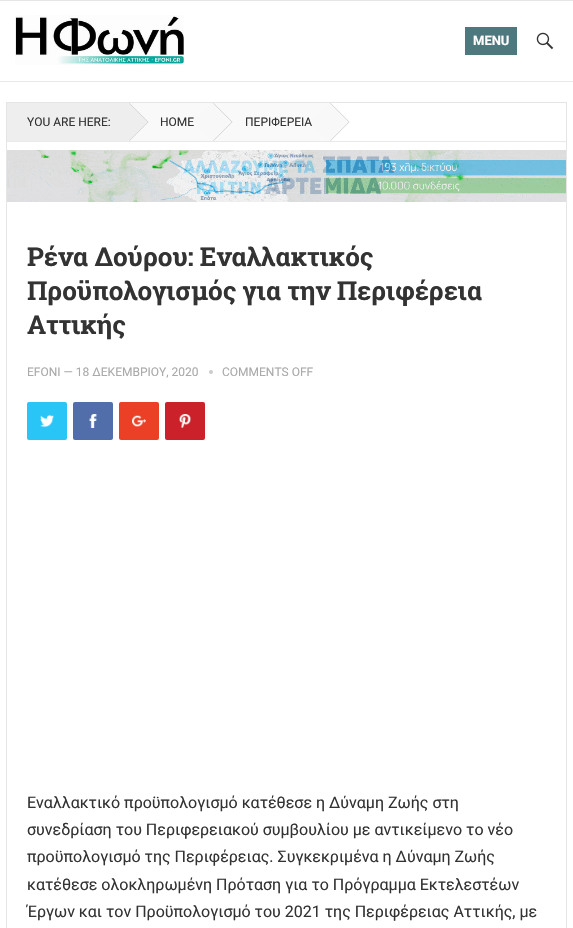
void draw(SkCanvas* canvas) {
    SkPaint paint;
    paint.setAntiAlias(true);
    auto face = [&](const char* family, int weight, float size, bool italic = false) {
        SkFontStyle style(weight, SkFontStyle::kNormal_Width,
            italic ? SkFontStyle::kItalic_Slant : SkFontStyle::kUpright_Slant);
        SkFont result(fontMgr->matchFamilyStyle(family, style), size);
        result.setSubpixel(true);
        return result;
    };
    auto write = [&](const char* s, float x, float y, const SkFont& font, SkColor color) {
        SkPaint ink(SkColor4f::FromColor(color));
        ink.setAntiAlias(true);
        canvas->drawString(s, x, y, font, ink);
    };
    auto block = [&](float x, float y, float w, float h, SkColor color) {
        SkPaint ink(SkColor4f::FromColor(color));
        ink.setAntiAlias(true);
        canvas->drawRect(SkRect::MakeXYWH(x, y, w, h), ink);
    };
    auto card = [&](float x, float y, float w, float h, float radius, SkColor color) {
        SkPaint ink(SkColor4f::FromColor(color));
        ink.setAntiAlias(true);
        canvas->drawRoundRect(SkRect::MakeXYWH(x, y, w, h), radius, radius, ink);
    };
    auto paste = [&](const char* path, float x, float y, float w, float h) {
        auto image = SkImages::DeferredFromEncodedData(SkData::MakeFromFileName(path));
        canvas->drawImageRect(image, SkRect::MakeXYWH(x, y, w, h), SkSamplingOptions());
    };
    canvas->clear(SK_ColorWHITE);
    block(0, 81, 573, 1, SkColorSetRGB(233, 233, 233));
    block(0, 0, 573, 1, SkColorSetRGB(229, 229, 229));
    paste("pic1.png", 15, 15, 169, 50);
    block(465, 27, 52, 28, SkColorSetRGB(77, 120, 125));
    auto kFont1 = face("Roboto", 700, 13);
    write("MENU", 473, 45, kFont1, SK_ColorWHITE);
    paste("pic2.png", 536, 32, 18, 18);
    block(6, 102, 561, 1, SkColorSetRGB(229, 229, 229));
    block(566, 102, 1, 826, SkColorSetRGB(229, 229, 229));
    block(6, 102, 1, 826, SkColorSetRGB(229, 229, 229));
    block(7, 141, 559, 1, SkColorSetRGB(233, 233, 233));
    block(7, 103, 121, 38, SkColorSetRGB(238, 238, 238));
    auto kFont2 = face("Roboto", 400, 12);
    write("YOU ARE HERE:", 27, 126, kFont2, SkColorSetRGB(51, 51, 51));
    block(129, 103, 84, 38, SkColorSetRGB(249, 249, 249));
    paint.setColor(SkColorSetRGB(204, 204, 204));
    canvas->drawPath(SkPathBuilder().moveTo(129.5f, 103).lineTo(129, 103.5f).lineTo(147.5f, 122).lineTo(129, 140.5f).lineTo(129.5f, 141).lineTo(148.5f, 122).close().detach(), paint);
    paint.setColor(SkColorSetRGB(238, 238, 238));
    canvas->drawPath(SkPathBuilder().moveTo(128.5f, 103).lineTo(147.5f, 122).lineTo(128.5f, 141).lineTo(109.5f, 122).close().detach(), paint);
    write("HOME", 160, 126, kFont2, SkColorSetRGB(51, 51, 51));
    block(214, 103, 116, 38, SkColorSetRGB(249, 249, 249));
    paint.setColor(SkColorSetRGB(204, 204, 204));
    canvas->drawPath(SkPathBuilder().moveTo(213.5f, 103).lineTo(213, 103.5f).lineTo(231.5f, 122).lineTo(213, 140.5f).lineTo(213.5f, 141).lineTo(232.5f, 122).close().detach(), paint);
    paint.setColor(SkColorSetRGB(248, 248, 248));
    canvas->drawPath(SkPathBuilder().moveTo(212.5f, 103).lineTo(231.5f, 122).lineTo(212.5f, 141).lineTo(193.5f, 122).close().detach(), paint);
    write("ΠΕΡΙΦΕΡΕΙΑ", 245, 126, kFont2, SkColorSetRGB(51, 51, 51));
    paint.setColor(SkColorSetRGB(204, 204, 204));
    canvas->drawPath(SkPathBuilder().moveTo(330.5f, 103).lineTo(330, 103.5f).lineTo(348.5f, 122).lineTo(330, 140.5f).lineTo(330.5f, 141).lineTo(349.5f, 122).close().detach(), paint);
    paint.setColor(SkColorSetRGB(248, 248, 248));
    canvas->drawPath(SkPathBuilder().moveTo(329.5f, 103).lineTo(348.5f, 122).lineTo(329.5f, 141).lineTo(310.5f, 122).close().detach(), paint);
    paste("pic3.png", 7, 150, 559, 52);
    auto kFont3 = face("Roboto Slab", 700, 26);
    write("Ρένα Δούρου: Εναλλακτικός", 27, 266, kFont3, SkColorSetRGB(51, 51, 51));
    write("Προϋπολογισμός για την Περιφέρεια", 27, 300, kFont3, SkColorSetRGB(51, 51, 51));
    write("Αττικής", 27, 334, kFont3, SkColorSetRGB(51, 51, 51));
    write("EFONI — 18 ΔΕΚΕΜΒΡΙΟΥ, 2020", 27, 376, kFont2, SkColorSetRGB(170, 170, 170));
    paint.setColor(SkColorSetRGB(204, 204, 204));
    canvas->drawCircle(211, 372, 2, paint);
    write("COMMENTS OFF", 222, 376, kFont2, SkColorSetRGB(170, 170, 170));
    card(27, 402, 40, 38, 2, SkColorSetRGB(41, 197, 246));
    paste("pic4.png", 40, 414, 14, 14);
    card(73, 402, 40, 38, 2, SkColorSetRGB(81, 110, 171));
    paste("pic5.png", 89, 414, 8, 14);
    card(119, 402, 40, 38, 2, SkColorSetRGB(235, 64, 38));
    paste("pic6.png", 132, 415, 14, 12);
    card(165, 402, 40, 38, 2, SkColorSetRGB(202, 33, 42));
    paste("pic7.png", 179, 414, 12, 14);
    auto kFont4 = face("Roboto", 400, 16);
    write("Εναλλακτικό προϋπολογισμό κατέθεσε η Δύναμη Ζωής στη", 27, 808, kFont4, SkColorSetRGB(51, 51, 51));
    write("συνεδρίαση του Περιφερειακού συμβουλίου με αντικείμενο το νέο", 27, 835, kFont4, SkColorSetRGB(51, 51, 51));
    write("προϋπολογισμό της Περιφέρειας. Συγκεκριμένα η Δύναμη Ζωής", 27, 862, kFont4, SkColorSetRGB(51, 51, 51));
    write("κατέθεσε ολοκληρωμένη Πρόταση για το Πρόγραμμα Εκτελεστέων", 27, 890, kFont4, SkColorSetRGB(51, 51, 51));
    write("Έργων και τον Προϋπολογισμό του 2021 της Περιφέρειας Αττικής, με", 27, 917, kFont4, SkColorSetRGB(51, 51, 51));
}
